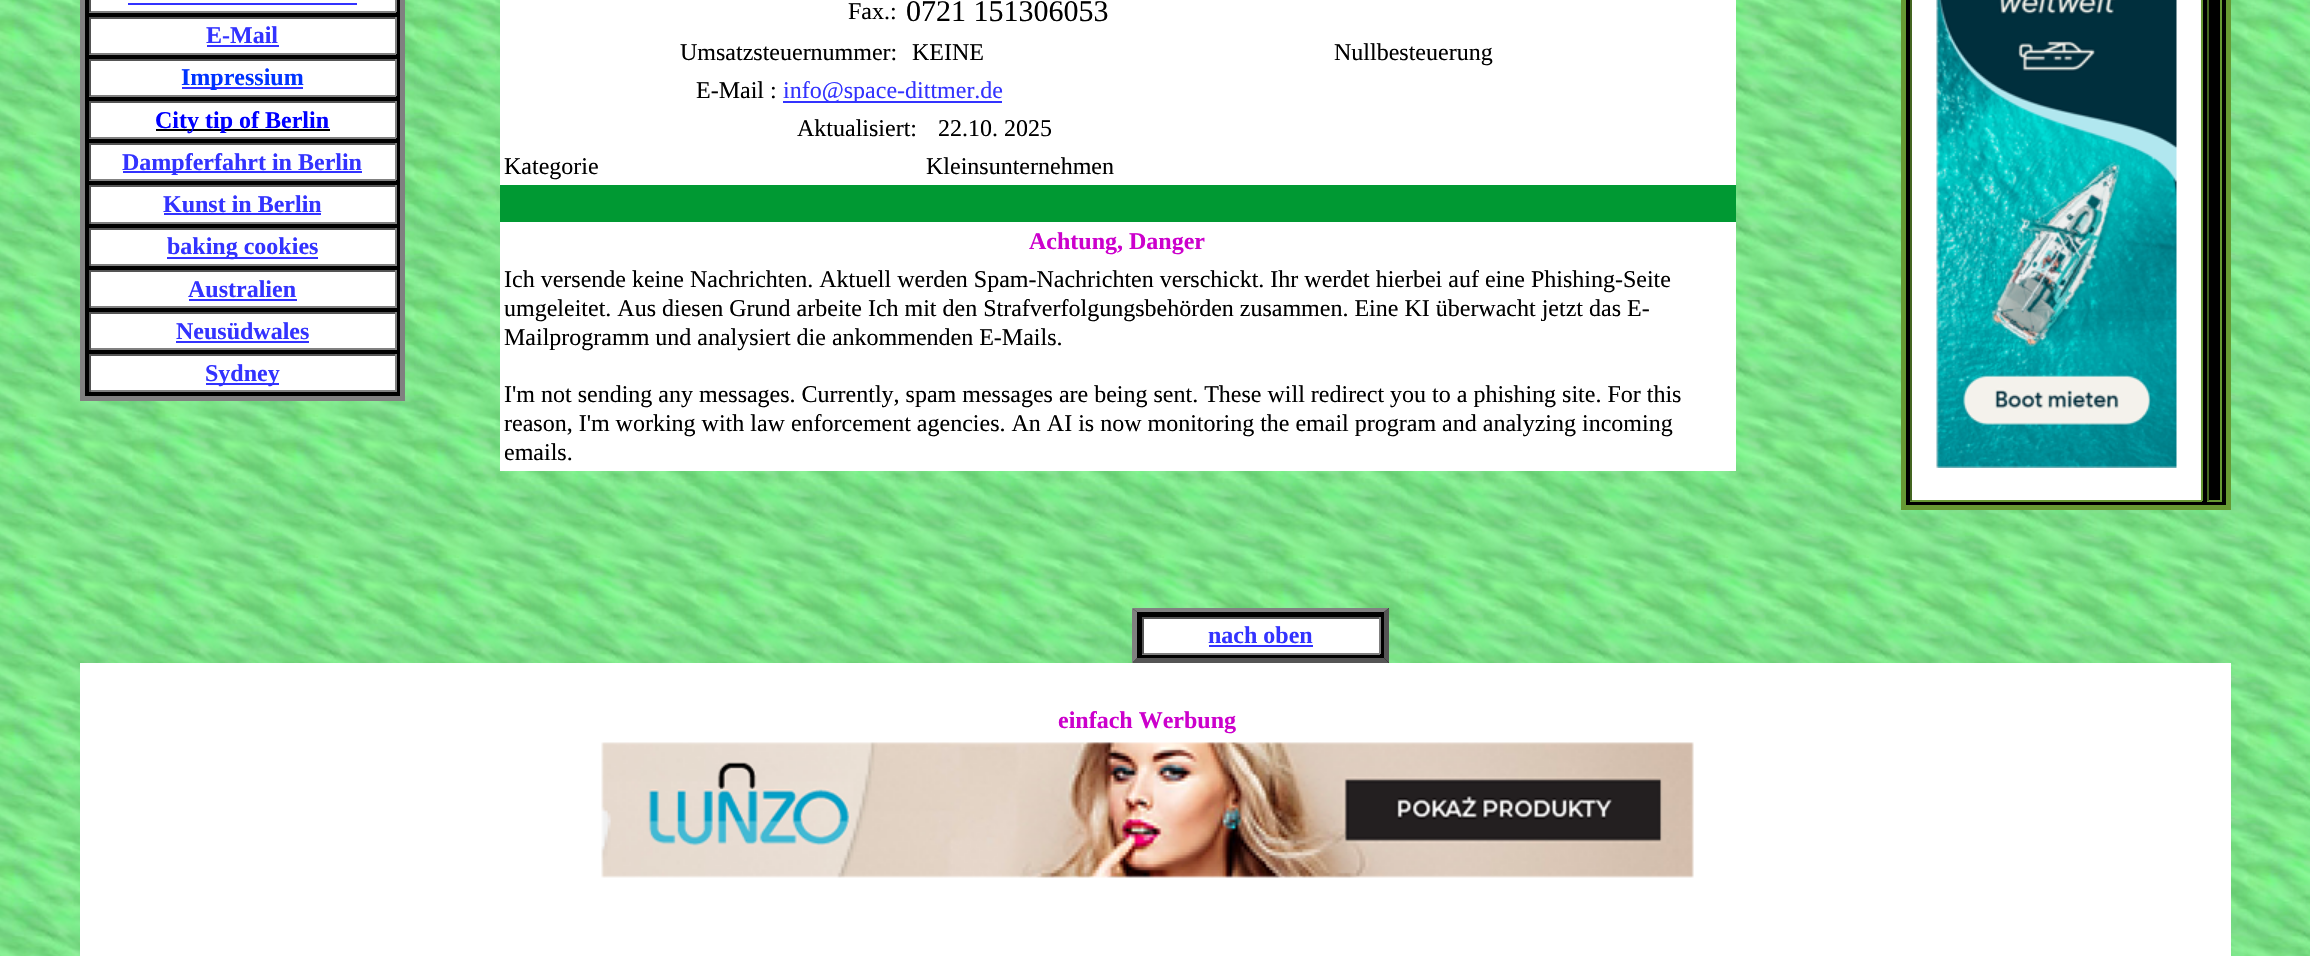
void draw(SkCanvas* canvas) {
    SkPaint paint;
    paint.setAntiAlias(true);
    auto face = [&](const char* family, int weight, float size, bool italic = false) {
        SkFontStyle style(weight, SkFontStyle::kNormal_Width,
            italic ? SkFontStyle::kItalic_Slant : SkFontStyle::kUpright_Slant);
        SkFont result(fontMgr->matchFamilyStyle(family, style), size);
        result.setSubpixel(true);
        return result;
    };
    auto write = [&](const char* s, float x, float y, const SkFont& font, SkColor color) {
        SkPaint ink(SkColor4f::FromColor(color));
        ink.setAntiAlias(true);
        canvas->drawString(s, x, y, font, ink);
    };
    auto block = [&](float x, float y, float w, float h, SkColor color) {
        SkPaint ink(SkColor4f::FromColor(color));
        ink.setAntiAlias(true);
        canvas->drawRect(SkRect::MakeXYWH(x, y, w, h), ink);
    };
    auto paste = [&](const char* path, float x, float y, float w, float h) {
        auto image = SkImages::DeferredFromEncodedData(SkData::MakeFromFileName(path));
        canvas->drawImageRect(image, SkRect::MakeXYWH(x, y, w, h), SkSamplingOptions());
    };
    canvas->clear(SK_ColorWHITE);
    paste("pic1.png", 0, 0, 2310, 956);
    paint.setColor(SK_ColorBLACK);
    canvas->drawRect(SkRect::MakeXYWH(82.5f, -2.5f, 320, 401), paint);
    paint.setStyle(SkPaint::kStroke_Style);
    paint.setStrokeWidth(5);
    paint.setColor(SkColorSetRGB(128, 128, 128));
    canvas->drawRect(SkRect::MakeXYWH(82.5f, -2.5f, 320, 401), paint);
    block(91, 0, 304, 11, SK_ColorWHITE);
    block(395, 0, 2, 12, SkColorSetRGB(128, 128, 128));
    block(89, 11, 307, 2, SkColorSetRGB(128, 128, 128));
    block(89, 0, 2, 12, SkColorSetRGB(85, 85, 85));
    block(128, 3, 229, 2, SkColorSetRGB(51, 51, 255));
    block(91, 19, 304, 34, SK_ColorWHITE);
    block(89, 17, 307, 2, SkColorSetRGB(85, 85, 85));
    block(395, 17, 2, 37, SkColorSetRGB(128, 128, 128));
    block(89, 53, 307, 2, SkColorSetRGB(128, 128, 128));
    block(89, 17, 2, 37, SkColorSetRGB(85, 85, 85));
    auto kFont1 = face("Liberation Serif", 700, 24);
    write("E-Mail", 206, 43, kFont1, SkColorSetRGB(51, 51, 255));
    block(207, 45, 72, 2, SkColorSetRGB(51, 51, 255));
    block(91, 61, 304, 34, SK_ColorWHITE);
    block(89, 59, 307, 2, SkColorSetRGB(85, 85, 85));
    block(395, 59, 2, 37, SkColorSetRGB(128, 128, 128));
    block(89, 95, 307, 2, SkColorSetRGB(128, 128, 128));
    block(89, 59, 2, 37, SkColorSetRGB(85, 85, 85));
    block(182, 87, 121, 2, SkColorSetRGB(51, 51, 255));
    write("Impressium", 181, 85, kFont1, SkColorSetRGB(0, 51, 255));
    block(91, 103, 304, 34, SK_ColorWHITE);
    block(89, 101, 307, 2, SkColorSetRGB(85, 85, 85));
    block(395, 101, 2, 37, SkColorSetRGB(128, 128, 128));
    block(89, 137, 307, 2, SkColorSetRGB(128, 128, 128));
    block(89, 101, 2, 37, SkColorSetRGB(85, 85, 85));
    block(156, 129, 174, 2, SK_ColorBLACK);
    write("City tip of Berlin", 155, 128, kFont1, SkColorSetRGB(0, 0, 255));
    block(91, 145, 304, 34, SK_ColorWHITE);
    block(89, 143, 307, 2, SkColorSetRGB(85, 85, 85));
    block(395, 143, 2, 37, SkColorSetRGB(128, 128, 128));
    block(89, 179, 307, 2, SkColorSetRGB(128, 128, 128));
    block(89, 143, 2, 37, SkColorSetRGB(85, 85, 85));
    block(123, 171, 239, 2, SkColorSetRGB(51, 51, 255));
    write("Dampferfahrt in Berlin", 122, 170, kFont1, SkColorSetRGB(51, 51, 255));
    block(91, 187, 304, 35, SK_ColorWHITE);
    block(89, 185, 307, 2, SkColorSetRGB(85, 85, 85));
    block(395, 185, 2, 39, SkColorSetRGB(128, 128, 128));
    block(89, 222, 307, 2, SkColorSetRGB(128, 128, 128));
    block(89, 185, 2, 39, SkColorSetRGB(85, 85, 85));
    write("Kunst in Berlin", 163, 212, kFont1, SkColorSetRGB(51, 51, 255));
    block(164, 213, 157, 2, SkColorSetRGB(51, 51, 255));
    block(91, 230, 304, 34, SK_ColorWHITE);
    block(89, 228, 307, 2, SkColorSetRGB(85, 85, 85));
    block(395, 228, 2, 38, SkColorSetRGB(128, 128, 128));
    block(89, 264, 307, 2, SkColorSetRGB(128, 128, 128));
    block(89, 228, 2, 38, SkColorSetRGB(85, 85, 85));
    block(167, 257, 151, 2, SkColorSetRGB(51, 51, 255));
    write("baking cookies", 167, 254, kFont1, SkColorSetRGB(51, 51, 255));
    block(91, 272, 304, 34, SK_ColorWHITE);
    block(89, 270, 307, 2, SkColorSetRGB(85, 85, 85));
    block(395, 270, 2, 38, SkColorSetRGB(128, 128, 128));
    block(89, 306, 307, 2, SkColorSetRGB(128, 128, 128));
    block(89, 270, 2, 38, SkColorSetRGB(85, 85, 85));
    write("Australien", 188, 297, kFont1, SkColorSetRGB(51, 51, 255));
    block(189, 299, 108, 2, SkColorSetRGB(51, 51, 255));
    block(91, 314, 304, 34, SK_ColorWHITE);
    block(89, 312, 307, 2, SkColorSetRGB(85, 85, 85));
    block(395, 312, 2, 38, SkColorSetRGB(128, 128, 128));
    block(89, 348, 307, 2, SkColorSetRGB(128, 128, 128));
    block(89, 312, 2, 38, SkColorSetRGB(85, 85, 85));
    write("Neusüdwales", 176, 339, kFont1, SkColorSetRGB(51, 51, 255));
    block(176, 341, 133, 2, SkColorSetRGB(51, 51, 255));
    block(91, 356, 304, 34, SK_ColorWHITE);
    block(89, 354, 307, 2, SkColorSetRGB(85, 85, 85));
    block(395, 354, 2, 38, SkColorSetRGB(128, 128, 128));
    block(89, 390, 307, 2, SkColorSetRGB(128, 128, 128));
    block(89, 354, 2, 38, SkColorSetRGB(85, 85, 85));
    block(206, 383, 73, 2, SkColorSetRGB(51, 51, 255));
    write("Sydney", 205, 381, kFont1, SkColorSetRGB(51, 51, 255));
    block(500, 185, 1236, 37, SkColorSetRGB(0, 153, 51));
    block(500, 0, 1236, 33, SK_ColorWHITE);
    auto kFont2 = face("Liberation Serif", 400, 24);
    write("Fax.:", 848, 19, kFont2, SK_ColorBLACK);
    auto kFont3 = face("Liberation Serif", 400, 30);
    write("0721 151306053", 906, 21, kFont3, SK_ColorBLACK);
    block(500, 33, 1236, 77, SK_ColorWHITE);
    write("Umsatzsteuernummer:", 680, 60, kFont2, SK_ColorBLACK);
    write("KEINE", 912, 60, kFont2, SK_ColorBLACK);
    write("Nullbesteuerung", 1334, 60, kFont2, SK_ColorBLACK);
    write("E-Mail :", 696, 98, kFont2, SK_ColorBLACK);
    block(783, 101, 219, 2, SkColorSetRGB(51, 51, 255));
    write("info@space-dittmer.de", 783, 98, kFont2, SkColorSetRGB(51, 51, 255));
    block(500, 110, 1236, 37, SK_ColorWHITE);
    write("Aktualisiert:", 797, 136, kFont2, SK_ColorBLACK);
    write("22.10. 2025", 938, 136, kFont2, SK_ColorBLACK);
    block(500, 147, 1236, 38, SK_ColorWHITE);
    write("Kategorie", 504, 174, kFont2, SK_ColorBLACK);
    write("Kleinsunternehmen", 926, 174, kFont2, SK_ColorBLACK);
    block(500, 222, 1236, 249, SK_ColorWHITE);
    write("Achtung, Danger", 1029, 249, kFont1, SkColorSetRGB(204, 0, 204));
    write("Ich versende keine Nachrichten. Aktuell werden Spam-Nachrichten verschickt. Ihr werdet hierbei auf eine Phishing-Seite", 504, 287, kFont2, SK_ColorBLACK);
    write("umgeleitet. Aus diesen Grund arbeite Ich mit den Strafverfolgungsbehörden zusammen. Eine KI überwacht jetzt das E-", 504, 316, kFont2, SK_ColorBLACK);
    write("Mailprogramm und analysiert die ankommenden E-Mails.", 504, 345, kFont2, SK_ColorBLACK);
    write("I'm not sending any messages. Currently, spam messages are being sent. These will redirect you to a phishing site. For this", 504, 402, kFont2, SK_ColorBLACK);
    write("reason, I'm working with law enforcement agencies. An AI is now monitoring the email program and analyzing incoming", 504, 431, kFont2, SK_ColorBLACK);
    write("emails.", 504, 460, kFont2, SK_ColorBLACK);
    block(1133, 608, 256, 55, SK_ColorBLACK);
    paint.setStyle(SkPaint::kFill_Style);
    canvas->drawPath(SkPathBuilder().moveTo(1132, 608).lineTo(1389, 608).lineTo(1384, 612).lineTo(1137, 612).close().detach(), paint);
    paint.setColor(SkColorSetRGB(85, 85, 85));
    canvas->drawPath(SkPathBuilder().moveTo(1389, 608).lineTo(1389, 663).lineTo(1384, 658).lineTo(1384, 612).close().detach(), paint);
    canvas->drawPath(SkPathBuilder().moveTo(1389, 663).lineTo(1132, 663).lineTo(1137, 658).lineTo(1384, 658).close().detach(), paint);
    paint.setColor(SkColorSetRGB(128, 128, 128));
    canvas->drawPath(SkPathBuilder().moveTo(1132, 663).lineTo(1132, 608).lineTo(1137, 612).lineTo(1137, 658).close().detach(), paint);
    block(1144, 619, 235, 34, SK_ColorWHITE);
    block(1142, 617, 238, 2, SkColorSetRGB(85, 85, 85));
    block(1379, 617, 2, 37, SkColorSetRGB(128, 128, 128));
    block(1142, 653, 238, 2, SkColorSetRGB(128, 128, 128));
    block(1142, 617, 2, 37, SkColorSetRGB(85, 85, 85));
    write("nach oben", 1208, 643, kFont1, SkColorSetRGB(51, 51, 255));
    block(1209, 645, 104, 2, SkColorSetRGB(51, 51, 255));
    paint.setColor(SK_ColorBLACK);
    canvas->drawRect(SkRect::MakeXYWH(1903.5f, -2.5f, 325, 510), paint);
    paint.setStyle(SkPaint::kStroke_Style);
    paint.setColor(SkColorSetRGB(102, 153, 51));
    canvas->drawRect(SkRect::MakeXYWH(1903.5f, -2.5f, 325, 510), paint);
    block(1912, 0, 289, 500, SK_ColorWHITE);
    block(2201, 0, 2, 501, SkColorSetRGB(102, 153, 51));
    block(1910, 500, 292, 2, SkColorSetRGB(102, 153, 51));
    block(1910, 0, 2, 501, SkColorSetRGB(68, 102, 34));
    paste("pic2.png", 1936, 0, 241, 468);
    block(2220, 0, 2, 501, SkColorSetRGB(102, 153, 51));
    block(2207, 500, 15, 2, SkColorSetRGB(102, 153, 51));
    block(2207, 0, 2, 501, SkColorSetRGB(68, 102, 34));
    block(80, 663, 2151, 293, SK_ColorWHITE);
    write("einfach Werbung", 1058, 728, kFont1, SkColorSetRGB(204, 0, 204));
    paste("pic3.png", 601, 742, 1093, 136);
}
